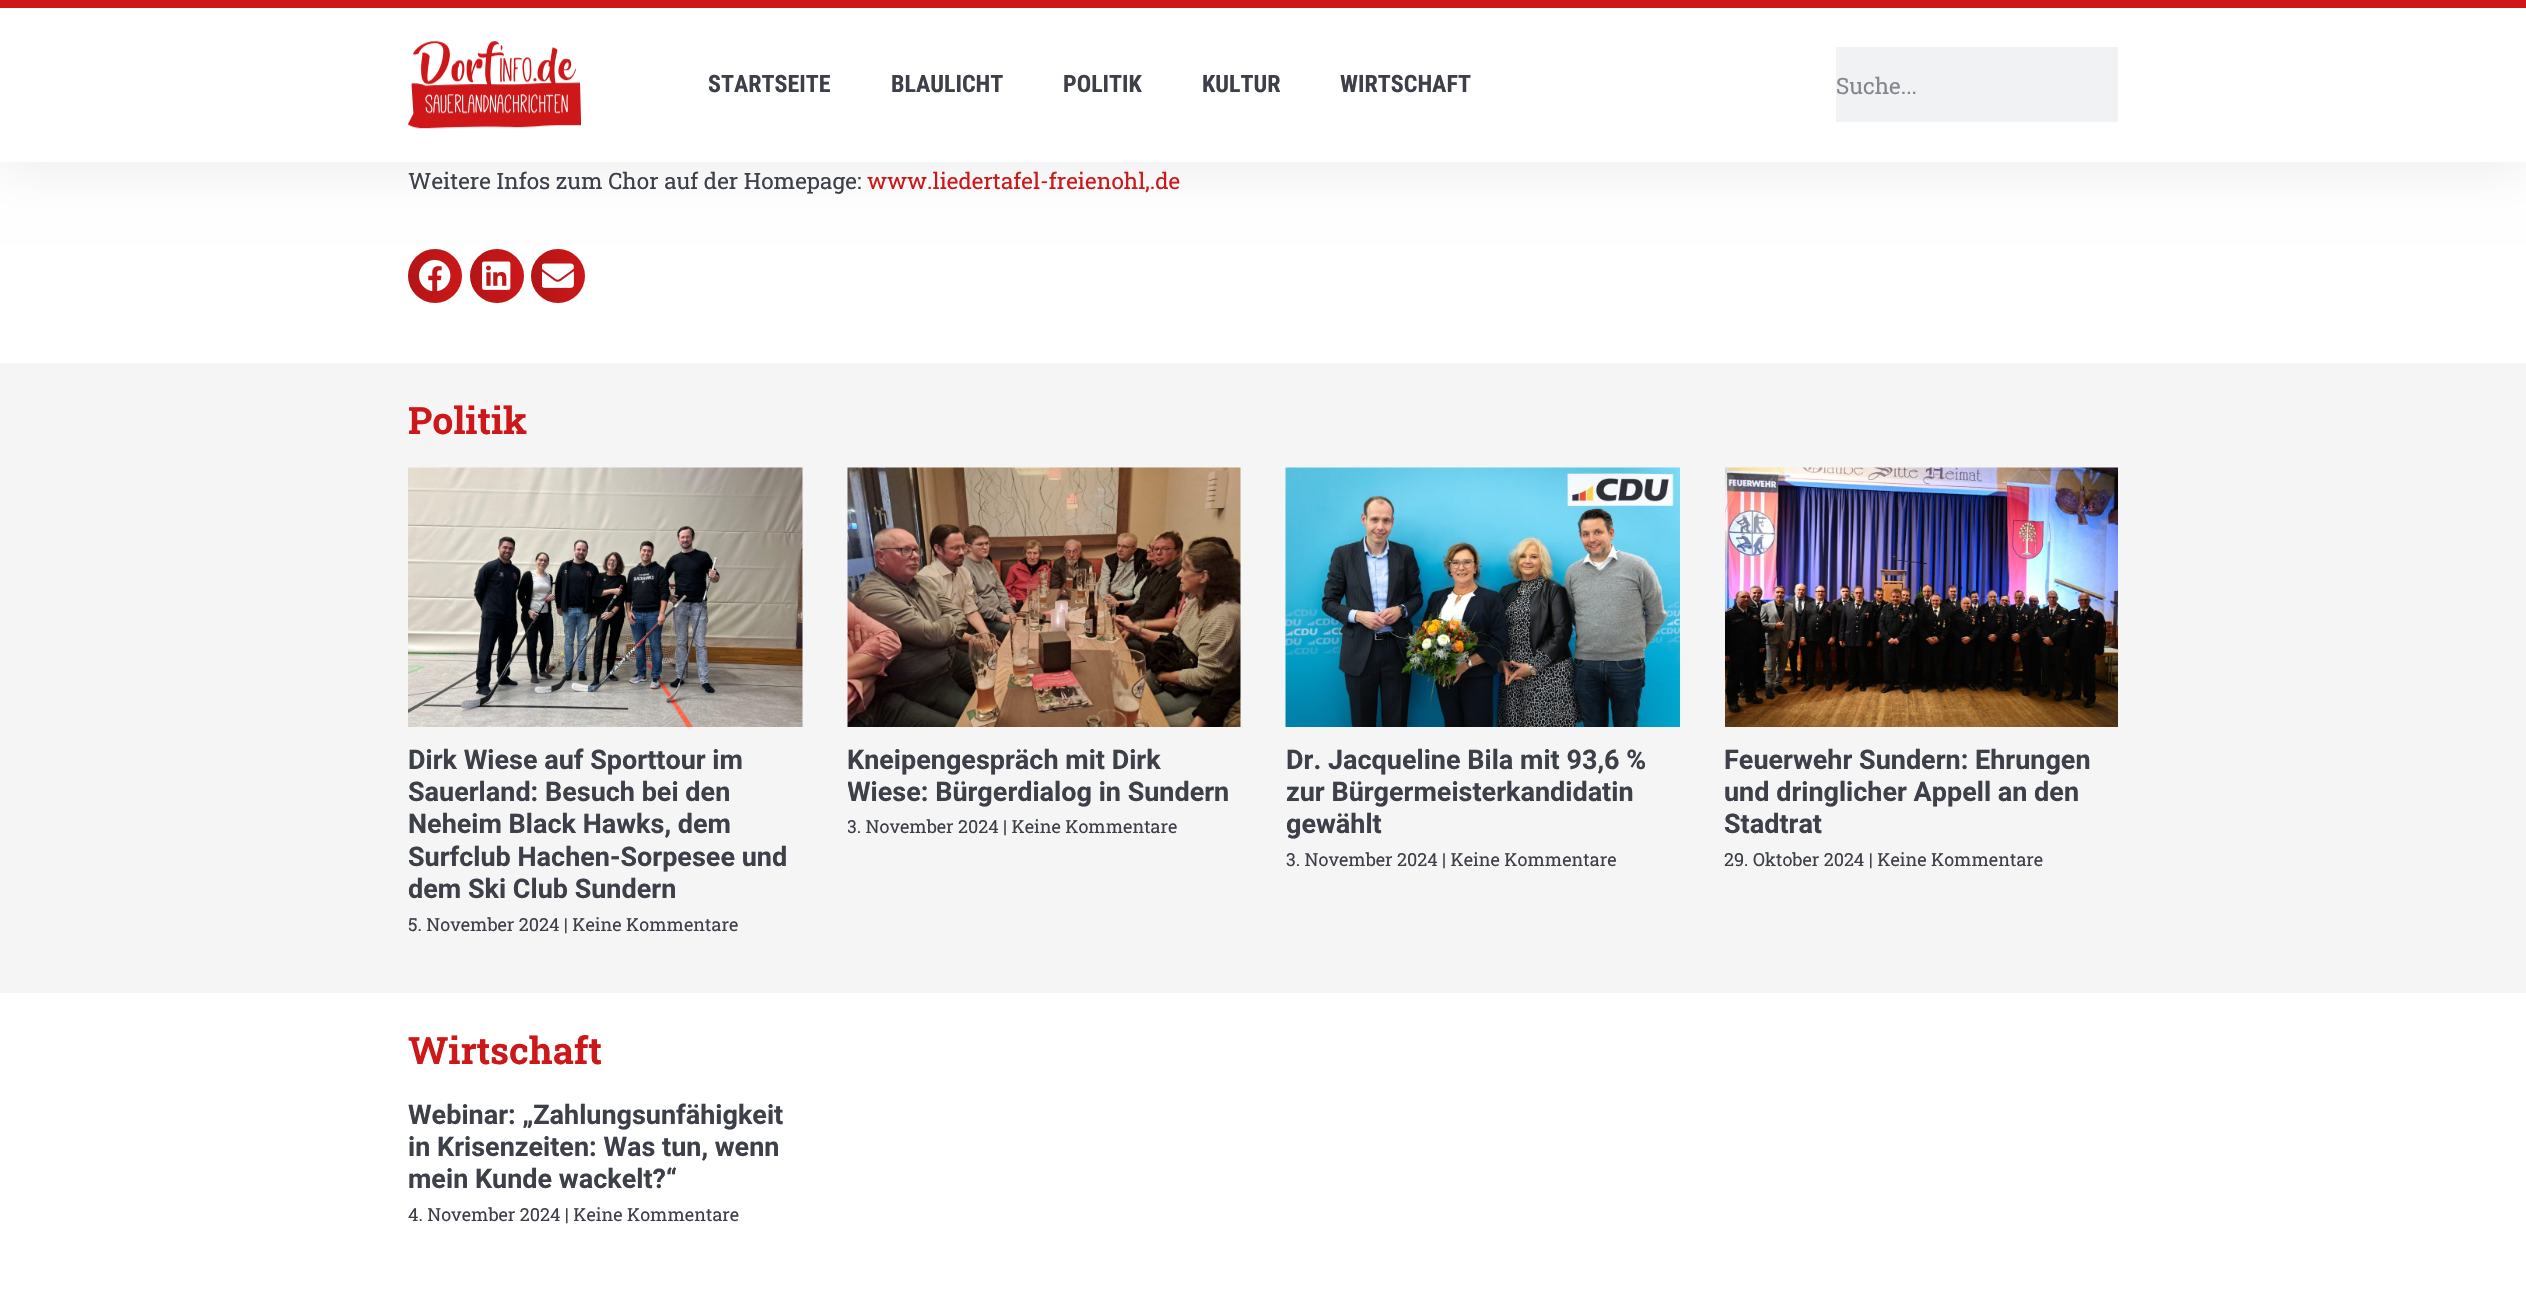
void draw(SkCanvas* canvas) {
    SkPaint paint;
    paint.setAntiAlias(true);
    auto face = [&](const char* family, int weight, float size, bool italic = false) {
        SkFontStyle style(weight, SkFontStyle::kNormal_Width,
            italic ? SkFontStyle::kItalic_Slant : SkFontStyle::kUpright_Slant);
        SkFont result(fontMgr->matchFamilyStyle(family, style), size);
        result.setSubpixel(true);
        return result;
    };
    auto write = [&](const char* s, float x, float y, const SkFont& font, SkColor color) {
        SkPaint ink(SkColor4f::FromColor(color));
        ink.setAntiAlias(true);
        canvas->drawString(s, x, y, font, ink);
    };
    auto block = [&](float x, float y, float w, float h, SkColor color) {
        SkPaint ink(SkColor4f::FromColor(color));
        ink.setAntiAlias(true);
        canvas->drawRect(SkRect::MakeXYWH(x, y, w, h), ink);
    };
    auto paste = [&](const char* path, float x, float y, float w, float h) {
        auto image = SkImages::DeferredFromEncodedData(SkData::MakeFromFileName(path));
        canvas->drawImageRect(image, SkRect::MakeXYWH(x, y, w, h), SkSamplingOptions());
    };
    canvas->clear(SK_ColorWHITE);
    paint.setColor(SkColorSetARGB(18, 0, 0, 0));
    paint.setMaskFilter(SkMaskFilter::MakeBlur(kNormal_SkBlurStyle, 25));
    canvas->drawRect(SkRect::MakeXYWH(-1, 5, 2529, 165), paint);
    paint.setMaskFilter(nullptr);
    block(0, 8, 2526, 154, SK_ColorWHITE);
    block(0, 0, 2526, 8, SkColorSetRGB(205, 23, 25));
    paste("pic1.png", 408, 41, 173, 88);
    auto kFont1 = face("Roboto Condensed", 700, 24);
    write("STARTSEITE", 708, 92, kFont1, SkColorSetRGB(61, 63, 73));
    write("BLAULICHT", 891, 92, kFont1, SkColorSetRGB(61, 63, 73));
    write("POLITIK", 1063, 92, kFont1, SkColorSetRGB(61, 63, 73));
    write("KULTUR", 1202, 92, kFont1, SkColorSetRGB(61, 63, 73));
    write("WIRTSCHAFT", 1340, 92, kFont1, SkColorSetRGB(61, 63, 73));
    block(1836, 47, 282, 75, SkColorSetRGB(241, 242, 243));
    auto kFont2 = face("Roboto Slab", 400, 22.5f);
    write("Suche...", 1836, 94, kFont2, SkColorSetRGB(133, 135, 141));
    write("Weitere Infos zum Chor auf der Homepage:", 408, 189, kFont2, SkColorSetRGB(61, 63, 73));
    write("www.liedertafel-freienohl,.de", 867, 189, kFont2, SkColorSetRGB(205, 23, 25));
    paint.setColor(SkColorSetRGB(205, 23, 25));
    canvas->drawCircle(435, 276, 27, paint);
    {
        const SkColor colors[] = {SkColorSetARGB(31, 0, 0, 0), SkColorSetARGB(0, 0, 0, 0)};
        const float stops[] = {0, 1};
        const SkPoint ends[] = {{408, 276}, {462, 276}};
        paint.setShader(SkGradientShader::MakeLinear(ends, colors, stops, 2, SkTileMode::kClamp));
        paint.setAlpha(255);
    }
    canvas->drawCircle(435, 276, 27, paint);
    paste("pic2.png", 419, 260, 32, 32);
    paint.setShader(nullptr);
    paint.setColor(SkColorSetRGB(205, 23, 25));
    canvas->drawCircle(497, 276, 27, paint);
    {
        const SkColor colors[] = {SkColorSetARGB(31, 0, 0, 0), SkColorSetARGB(0, 0, 0, 0)};
        const float stops[] = {0, 1};
        const SkPoint ends[] = {{470, 276}, {524, 276}};
        paint.setShader(SkGradientShader::MakeLinear(ends, colors, stops, 2, SkTileMode::kClamp));
        paint.setAlpha(255);
    }
    canvas->drawCircle(497, 276, 27, paint);
    paste("pic3.png", 482, 261, 29, 29);
    paint.setShader(nullptr);
    paint.setColor(SkColorSetRGB(205, 23, 25));
    canvas->drawCircle(558, 276, 27, paint);
    {
        const SkColor colors[] = {SkColorSetARGB(31, 0, 0, 0), SkColorSetARGB(0, 0, 0, 0)};
        const float stops[] = {0, 1};
        const SkPoint ends[] = {{531, 276}, {585, 276}};
        paint.setShader(SkGradientShader::MakeLinear(ends, colors, stops, 2, SkTileMode::kClamp));
        paint.setAlpha(255);
    }
    canvas->drawCircle(558, 276, 27, paint);
    paste("pic4.png", 542, 263, 32, 25);
    block(0, 363, 2526, 630, SkColorSetRGB(245, 245, 245));
    auto kFont3 = face("Roboto Slab", 700, 37.5f);
    write("Politik", 408, 434, kFont3, SkColorSetRGB(205, 23, 25));
    paste("pic5.png", 408, 467, 395, 260);
    auto kFont4 = face("Roboto", 700, 27);
    write("Dirk Wiese auf Sporttour im", 408, 769, kFont4, SkColorSetRGB(61, 63, 73));
    write("Sauerland: Besuch bei den", 408, 801, kFont4, SkColorSetRGB(61, 63, 73));
    write("Neheim Black Hawks, dem", 408, 833, kFont4, SkColorSetRGB(61, 63, 73));
    write("Surfclub Hachen-Sorpesee und", 408, 866, kFont4, SkColorSetRGB(61, 63, 73));
    write("dem Ski Club Sundern", 408, 898, kFont4, SkColorSetRGB(61, 63, 73));
    auto kFont5 = face("Roboto Slab", 400, 18);
    write("5. November 2024 | Keine Kommentare", 408, 931, kFont5, SkColorSetRGB(61, 63, 73));
    paste("pic6.png", 847, 467, 394, 260);
    write("Kneipengespräch mit Dirk", 847, 769, kFont4, SkColorSetRGB(61, 63, 73));
    canvas->save();
    canvas->clipRect(SkRect::MakeXYWH(848, 468, 393, 488));
    write("Wiese: Bürgerdialog in Sundern", 847, 801, kFont4, SkColorSetRGB(61, 63, 73));
    write("3. November 2024", 847, 833, kFont5, SkColorSetRGB(61, 63, 73));
    canvas->restore();
    write("| Keine Kommentare", 1003, 833, kFont5, SkColorSetRGB(61, 63, 73));
    paste("pic7.png", 1285, 467, 395, 260);
    write("Dr. Jacqueline Bila mit 93,6 %", 1286, 769, kFont4, SkColorSetRGB(61, 63, 73));
    write("zur Bürgermeisterkandidatin", 1286, 801, kFont4, SkColorSetRGB(61, 63, 73));
    write("gewählt", 1286, 833, kFont4, SkColorSetRGB(61, 63, 73));
    write("3. November 2024 | Keine Kommentare", 1286, 866, kFont5, SkColorSetRGB(61, 63, 73));
    paste("pic8.png", 1725, 467, 393, 260);
    write("Feuerwehr Sundern: Ehrungen", 1724, 769, kFont4, SkColorSetRGB(61, 63, 73));
    write("und dringlicher Appell an den", 1724, 801, kFont4, SkColorSetRGB(61, 63, 73));
    write("Stadtrat", 1724, 833, kFont4, SkColorSetRGB(61, 63, 73));
    write("29. Oktober 2024 | Keine Kommentare", 1724, 866, kFont5, SkColorSetRGB(61, 63, 73));
    write("Wirtschaft", 408, 1064, kFont3, SkColorSetRGB(205, 23, 25));
    write("Webinar: „Zahlungsunfähigkeit", 408, 1124, kFont4, SkColorSetRGB(61, 63, 73));
    write("in Krisenzeiten: Was tun, wenn", 408, 1156, kFont4, SkColorSetRGB(61, 63, 73));
    write("mein Kunde wackelt?“", 408, 1188, kFont4, SkColorSetRGB(61, 63, 73));
    write("4. November 2024 | Keine Kommentare", 408, 1221, kFont5, SkColorSetRGB(61, 63, 73));
}
